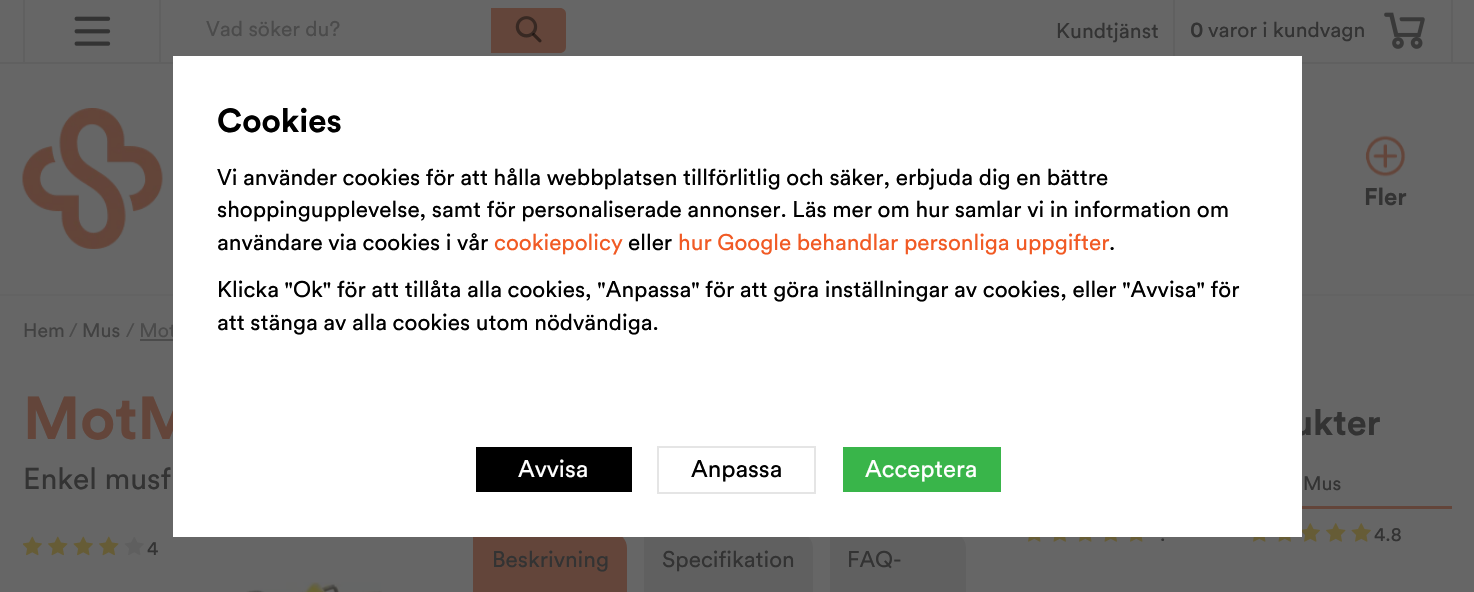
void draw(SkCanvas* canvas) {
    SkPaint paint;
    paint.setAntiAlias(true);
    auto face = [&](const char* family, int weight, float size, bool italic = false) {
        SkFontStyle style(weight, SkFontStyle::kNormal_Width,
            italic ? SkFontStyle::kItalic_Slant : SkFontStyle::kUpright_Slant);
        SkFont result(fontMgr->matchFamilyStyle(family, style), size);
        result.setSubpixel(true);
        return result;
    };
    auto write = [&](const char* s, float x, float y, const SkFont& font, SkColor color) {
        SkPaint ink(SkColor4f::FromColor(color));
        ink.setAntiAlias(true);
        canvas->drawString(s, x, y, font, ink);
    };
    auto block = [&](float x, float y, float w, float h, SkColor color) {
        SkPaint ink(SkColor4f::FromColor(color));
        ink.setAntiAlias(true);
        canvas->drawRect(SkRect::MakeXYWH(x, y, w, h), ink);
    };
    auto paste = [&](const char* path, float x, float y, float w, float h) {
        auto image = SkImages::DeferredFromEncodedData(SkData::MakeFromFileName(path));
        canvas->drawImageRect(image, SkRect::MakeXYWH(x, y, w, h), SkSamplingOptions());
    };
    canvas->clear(SkColorSetRGB(102, 102, 102));
    block(0, 62, 1474, 2, SkColorSetRGB(96, 96, 96));
    block(23, 0, 2, 62, SkColorSetRGB(96, 96, 96));
    paste("pic1.png", 74, 16, 37, 30);
    block(159, 0, 2, 62, SkColorSetRGB(96, 96, 96));
    auto kFont1 = face("Circular", 400, 21);
    write("Vad söker du?", 206, 36, kFont1, SkColorSetRGB(75, 75, 75));
    paint.setColor(SkColorSetRGB(99, 69, 58));
    canvas->drawPath(SkPathBuilder().moveTo(491, 8).lineTo(560, 8).cubicTo(563.5f, 8, 566, 10.5f, 566, 14).lineTo(566, 47).cubicTo(566, 50.5f, 563.5f, 53, 560, 53).lineTo(491, 53).close().detach(), paint);
    paste("pic2.png", 515, 16, 27, 27);
    block(1451, 0, 2, 62, SkColorSetRGB(96, 96, 96));
    block(1173, 0, 2, 62, SkColorSetRGB(96, 96, 96));
    write("Kundtjänst", 1056, 38, kFont1, SkColorSetRGB(51, 51, 51));
    auto kFont2 = face("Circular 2", 700, 21);
    write("0", 1190, 37, kFont2, SkColorSetRGB(51, 51, 51));
    write("varor i kundvagn", 1208, 37, kFont1, SkColorSetRGB(51, 51, 51));
    paste("pic3.png", 1384, 12, 41, 37);
    block(0, 294, 1474, 2, SkColorSetRGB(99, 99, 99));
    paste("pic4.png", 22, 108, 141, 141);
    paste("pic5.png", 1365, 135, 41, 42);
    auto kFont3 = face("Circular", 700, 24);
    write("Fler", 1364, 205, kFont3, SkColorSetRGB(51, 51, 51));
    auto kFont4 = face("Circular", 400, 19.5f);
    write("Hem", 23, 337, kFont4, SkColorSetRGB(65, 65, 65));
    write("/", 69, 337, kFont4, SkColorSetRGB(75, 75, 75));
    write("Mus", 82, 337, kFont4, SkColorSetRGB(65, 65, 65));
    write("/ Mot", 126, 337, kFont4, SkColorSetRGB(75, 75, 75));
    block(140, 339, 33, 2, SkColorSetRGB(75, 75, 75));
    auto kFont5 = face("Circular", 700, 60);
    write("MotM", 23, 439, kFont5, SkColorSetRGB(99, 69, 58));
    auto kFont6 = face("Circular", 400, 30);
    write("Enkel musf", 23, 489, kFont6, SkColorSetRGB(51, 51, 51));
    paste("pic6.png", 23, 536, 19, 20);
    paste("pic7.png", 48, 536, 20, 20);
    paste("pic8.png", 73, 536, 20, 20);
    paste("pic7.png", 99, 536, 20, 20);
    paste("pic9.png", 124, 537, 20, 18);
    write("4", 147, 555, kFont4, SkColorSetRGB(51, 51, 51));
    paste("pic10.png", 246, 582, 136, 10);
    canvas->drawPath(SkPathBuilder().moveTo(473, 533).lineTo(612, 533).cubicTo(620.5f, 533, 627, 539.5f, 627, 548).lineTo(627, 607).lineTo(473, 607).close().detach(), paint);
    auto kFont7 = face("Circular", 400, 22.5f);
    write("Beskrivning", 492, 567, kFont7, SkColorSetRGB(51, 51, 51));
    paint.setColor(SkColorSetRGB(96, 96, 96));
    canvas->drawPath(SkPathBuilder().moveTo(642, 533).lineTo(798, 533).cubicTo(806.5f, 533, 813, 539.5f, 813, 548).lineTo(813, 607).lineTo(642, 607).close().detach(), paint);
    block(642, 533, 2, 59, SkColorSetRGB(102, 102, 102));
    write("Specifikation", 662, 567, kFont7, SkColorSetRGB(51, 51, 51));
    canvas->drawPath(SkPathBuilder().moveTo(828, 533).lineTo(951, 533).cubicTo(959.5f, 533, 966, 539.5f, 966, 548).lineTo(966, 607).lineTo(828, 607).close().detach(), paint);
    block(828, 533, 2, 59, SkColorSetRGB(102, 102, 102));
    write("FAQ-", 847, 567, kFont7, SkColorSetRGB(51, 51, 51));
    auto kFont8 = face("Circular", 700, 36);
    write("ukter", 1292, 435, kFont8, SkColorSetRGB(51, 51, 51));
    paste("pic11.png", 1028, 537, 13, 5);
    paste("pic12.png", 1053, 537, 13, 5);
    paste("pic11.png", 1079, 537, 13, 5);
    paste("pic12.png", 1104, 537, 13, 5);
    paste("pic11.png", 1130, 537, 13, 5);
    write(".", 1160, 541, kFont4, SkColorSetRGB(51, 51, 51));
    block(1302, 506, 150, 3, SkColorSetRGB(99, 69, 58));
    write("Mus", 1303, 490, kFont4, SkColorSetRGB(51, 51, 51));
    paste("pic11.png", 1253, 537, 13, 5);
    paste("pic12.png", 1278, 537, 13, 5);
    paste("pic13.png", 1302, 523, 18, 19);
    paste("pic14.png", 1326, 523, 20, 19);
    paste("pic15.png", 1351, 523, 20, 19);
    write("4.8", 1374, 541, kFont4, SkColorSetRGB(51, 51, 51));
    block(173, 56, 1129, 481, SK_ColorWHITE);
    auto kFont9 = face("Circular", 700, 33);
    write("Cookies", 217, 132, kFont9, SK_ColorBLACK);
    write("Vi använder cookies för att hålla webbplatsen tillförlitlig och säker, erbjuda dig en bättre", 217, 185, kFont7, SK_ColorBLACK);
    write("shoppingupplevelse, samt för personaliserade annonser. Läs mer om hur samlar vi in information om", 217, 217, kFont7, SK_ColorBLACK);
    write("användare via cookies i vår", 217, 250, kFont7, SK_ColorBLACK);
    write("cookiepolicy", 494, 250, kFont7, SkColorSetRGB(241, 90, 36));
    write("eller", 628, 250, kFont7, SK_ColorBLACK);
    write("hur Google behandlar personliga uppgifter", 678, 250, kFont7, SkColorSetRGB(241, 90, 36));
    write(".", 1109, 250, kFont7, SK_ColorBLACK);
    write("Klicka \"Ok\" för att tillåta alla cookies, \"Anpassa\" för att göra inställningar av cookies, eller \"Avvisa\" för", 217, 297, kFont7, SK_ColorBLACK);
    write("att stänga av alla cookies utom nödvändiga.", 217, 330, kFont7, SK_ColorBLACK);
    block(476, 447, 156, 45, SK_ColorBLACK);
    auto kFont10 = face("Circular", 400, 24);
    write("Avvisa", 518, 477, kFont10, SK_ColorWHITE);
    paint.setStyle(SkPaint::kStroke_Style);
    paint.setStrokeWidth(2);
    paint.setColor(SkColorSetRGB(229, 229, 229));
    canvas->drawRect(SkRect::MakeXYWH(658, 447, 157, 46), paint);
    write("Anpassa", 691, 477, kFont10, SK_ColorBLACK);
    block(843, 447, 158, 45, SkColorSetRGB(57, 181, 74));
    write("Acceptera", 865, 477, kFont10, SK_ColorWHITE);
}
